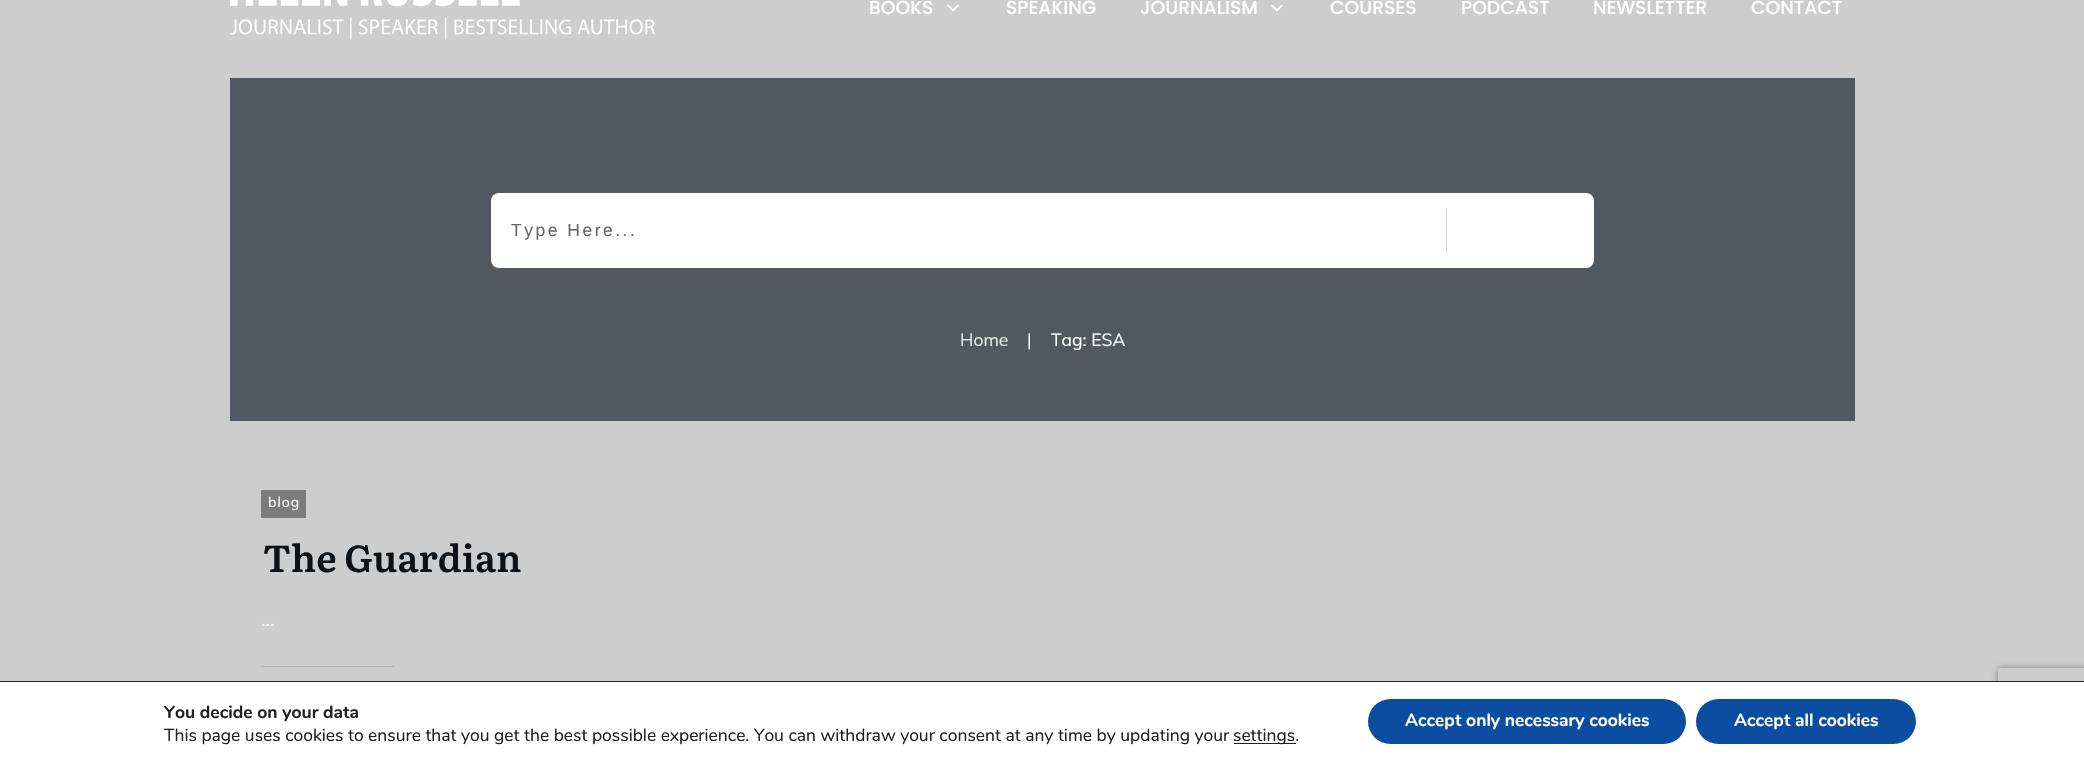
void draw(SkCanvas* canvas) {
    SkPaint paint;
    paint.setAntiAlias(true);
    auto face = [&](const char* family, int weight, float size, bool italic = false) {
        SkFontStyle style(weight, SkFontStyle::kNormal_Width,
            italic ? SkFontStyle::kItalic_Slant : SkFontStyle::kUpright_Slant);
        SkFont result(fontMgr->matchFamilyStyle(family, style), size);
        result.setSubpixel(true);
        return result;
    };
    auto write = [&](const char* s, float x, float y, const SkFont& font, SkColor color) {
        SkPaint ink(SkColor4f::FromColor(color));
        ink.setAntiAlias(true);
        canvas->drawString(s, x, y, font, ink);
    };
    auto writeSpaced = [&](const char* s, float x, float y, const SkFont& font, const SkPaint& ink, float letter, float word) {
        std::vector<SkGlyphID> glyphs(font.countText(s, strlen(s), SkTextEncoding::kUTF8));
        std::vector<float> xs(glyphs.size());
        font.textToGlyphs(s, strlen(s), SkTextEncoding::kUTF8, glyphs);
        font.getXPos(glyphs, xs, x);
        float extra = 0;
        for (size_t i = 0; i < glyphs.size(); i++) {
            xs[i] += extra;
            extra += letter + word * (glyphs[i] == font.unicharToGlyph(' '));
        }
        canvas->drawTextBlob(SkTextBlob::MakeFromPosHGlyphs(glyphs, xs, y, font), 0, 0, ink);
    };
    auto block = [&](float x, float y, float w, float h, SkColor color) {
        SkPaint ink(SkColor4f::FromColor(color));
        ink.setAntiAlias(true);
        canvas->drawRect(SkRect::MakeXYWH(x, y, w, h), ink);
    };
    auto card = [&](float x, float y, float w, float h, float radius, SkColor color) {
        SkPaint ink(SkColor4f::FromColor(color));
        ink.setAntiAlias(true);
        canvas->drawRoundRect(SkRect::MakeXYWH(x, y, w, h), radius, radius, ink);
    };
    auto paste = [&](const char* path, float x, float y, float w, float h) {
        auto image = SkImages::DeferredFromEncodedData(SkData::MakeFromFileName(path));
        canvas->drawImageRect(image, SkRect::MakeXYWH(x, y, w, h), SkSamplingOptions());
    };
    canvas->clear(SkColorSetRGB(205, 205, 205));
    paste("pic1.png", 230, 0, 425, 40);
    auto kFont1 = face("Poppins", 500, 18.75f);
    write("BOOKS", 869, 14, kFont1, SK_ColorWHITE);
    paste("pic2.png", 947, 4, 12, 8);
    write("SPEAKING", 1006, 14, kFont1, SK_ColorWHITE);
    write("JOURNALISM", 1140, 14, kFont1, SK_ColorWHITE);
    paste("pic3.png", 1271, 4, 12, 8);
    write("COURSES", 1330, 14, kFont1, SK_ColorWHITE);
    write("PODCAST", 1461, 14, kFont1, SK_ColorWHITE);
    write("NEWSLETTER", 1593, 14, kFont1, SK_ColorWHITE);
    write("CONTACT", 1751, 14, kFont1, SK_ColorWHITE);
    block(230, 78, 1625, 343, SkColorSetRGB(82, 88, 95));
    card(491, 193, 1103, 75, 8, SK_ColorWHITE);
    auto kFont2 = face("Liberation Sans", 400, 17.5f);
    paint.setColor(SkColorSetRGB(102, 102, 102));
    writeSpaced("Type Here...", 511, 236, kFont2, paint, 2.5f, 0);
    block(1446, 208, 1, 45, SkColorSetRGB(214, 214, 214));
    auto kFont3 = face("Muli", 400, 17.5f);
    write("Home", 960, 346, kFont3, SkColorSetRGB(229, 230, 231));
    write("|", 1027, 346, kFont3, SK_ColorWHITE);
    write("Tag: ESA", 1051, 346, kFont3, SK_ColorWHITE);
    block(261, 490, 45, 28, SkColorSetRGB(123, 123, 123));
    auto kFont4 = face("Muli", 400, 14);
    paint.setColor(SK_ColorWHITE);
    writeSpaced("blog", 268, 507, kFont4, paint, 1, 0);
    auto kFont5 = face("Literata", 600, 37.5f);
    write("The Guardian", 263, 572, kFont5, SkColorSetRGB(12, 17, 21));
    auto kFont6 = face("Muli", 400, 20);
    write("...", 261, 626, kFont6, SK_ColorWHITE);
    block(261, 666, 133, 1, SkColorSetRGB(180, 180, 180));
    canvas->save();
    canvas->clipPath(SkPathBuilder(SkPathFillType::kEvenOdd).moveTo(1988, 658).lineTo(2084, 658).lineTo(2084, 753).lineTo(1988, 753).close().moveTo(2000.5f, 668).lineTo(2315.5f, 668).cubicTo(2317, 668, 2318, 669, 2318, 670.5f).lineTo(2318, 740.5f).cubicTo(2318, 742, 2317, 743, 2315.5f, 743).lineTo(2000.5f, 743).cubicTo(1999, 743, 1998, 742, 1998, 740.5f).lineTo(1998, 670.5f).cubicTo(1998, 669, 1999, 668, 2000.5f, 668).close().detach(), true);
    paint.setColor(SkColorSetRGB(128, 128, 128));
    paint.setMaskFilter(SkMaskFilter::MakeBlur(kNormal_SkBlurStyle, 3));
    canvas->drawRoundRect(SkRect::MakeXYWH(1998, 668, 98, 75), 2.5f, 2.5f, paint);
    paint.setMaskFilter(nullptr);
    canvas->restore();
    block(0, 682, 2084, 78, SK_ColorWHITE);
    block(0, 681, 2084, 1, SkColorSetRGB(32, 32, 32));
    auto kFont7 = face("Nunito", 700, 17.5f);
    write("You decide on your data", 164, 718, kFont7, SkColorSetRGB(32, 32, 32));
    auto kFont8 = face("Nunito", 400, 17.5f);
    write("This page uses cookies to ensure that you get the best possible experience. You can withdraw your consent at any time by updating your", 164, 741, kFont8, SkColorSetRGB(32, 32, 32));
    block(1234, 743, 62, 1, SkColorSetRGB(32, 32, 32));
    write("settings.", 1233, 741, kFont8, SkColorSetRGB(32, 32, 32));
    card(1368, 699, 318, 45, 22.5f, SkColorSetRGB(12, 77, 162));
    write("Accept only necessary cookies", 1405, 726, kFont7, SK_ColorWHITE);
    card(1696, 699, 220, 45, 22.5f, SkColorSetRGB(12, 77, 162));
    write("Accept all cookies", 1734, 726, kFont7, SK_ColorWHITE);
}
